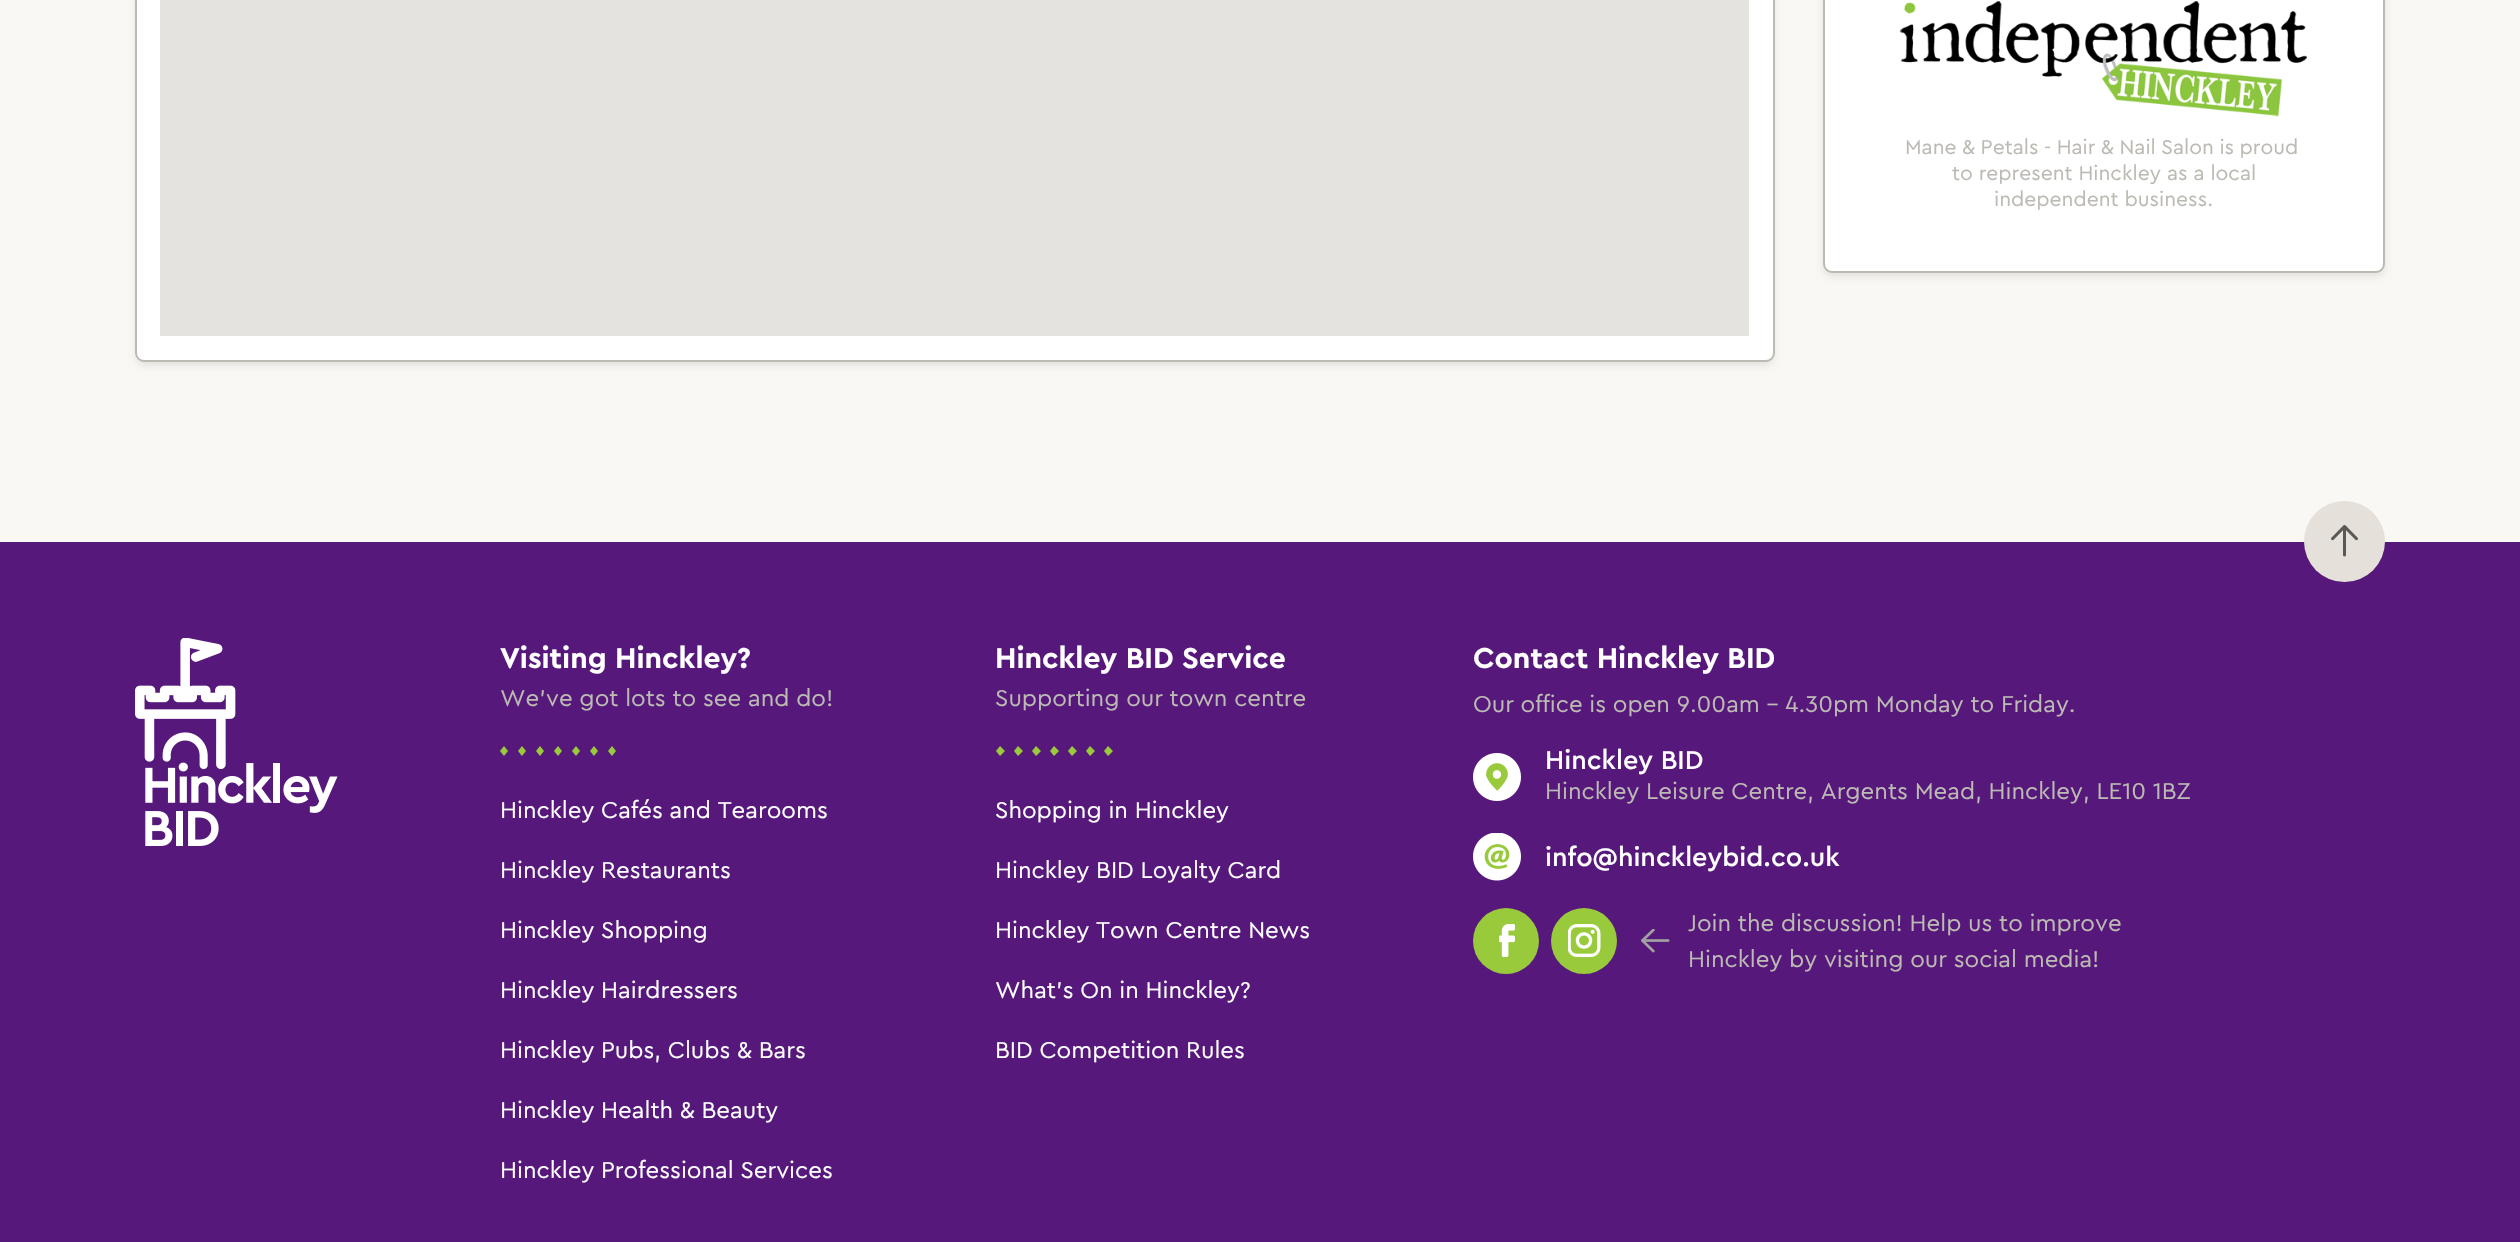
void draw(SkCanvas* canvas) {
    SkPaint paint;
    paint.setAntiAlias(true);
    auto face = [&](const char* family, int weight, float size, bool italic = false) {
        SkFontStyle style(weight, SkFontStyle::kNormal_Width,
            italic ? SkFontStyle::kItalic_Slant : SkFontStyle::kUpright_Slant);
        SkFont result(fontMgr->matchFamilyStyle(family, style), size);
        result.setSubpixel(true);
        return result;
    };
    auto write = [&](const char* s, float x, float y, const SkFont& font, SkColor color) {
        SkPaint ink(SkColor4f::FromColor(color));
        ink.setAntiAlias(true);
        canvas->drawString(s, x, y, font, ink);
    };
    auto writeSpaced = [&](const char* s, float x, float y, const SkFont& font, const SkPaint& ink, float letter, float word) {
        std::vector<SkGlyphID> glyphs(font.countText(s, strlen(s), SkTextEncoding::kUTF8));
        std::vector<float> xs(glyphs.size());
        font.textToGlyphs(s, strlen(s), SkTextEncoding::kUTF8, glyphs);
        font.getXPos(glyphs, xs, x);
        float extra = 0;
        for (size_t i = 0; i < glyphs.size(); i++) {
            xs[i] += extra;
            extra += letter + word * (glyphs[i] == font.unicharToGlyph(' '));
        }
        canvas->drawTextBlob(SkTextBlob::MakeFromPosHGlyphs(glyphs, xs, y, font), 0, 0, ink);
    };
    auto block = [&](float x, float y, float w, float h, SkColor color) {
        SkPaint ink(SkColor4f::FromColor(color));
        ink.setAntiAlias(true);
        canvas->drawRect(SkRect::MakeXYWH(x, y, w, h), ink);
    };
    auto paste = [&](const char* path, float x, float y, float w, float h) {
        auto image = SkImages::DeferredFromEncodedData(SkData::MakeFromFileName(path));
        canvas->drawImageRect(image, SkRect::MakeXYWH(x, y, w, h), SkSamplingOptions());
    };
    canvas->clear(SkColorSetRGB(86, 25, 123));
    block(0, 0, 2520, 542, SkColorSetRGB(249, 248, 244));
    paint.setColor(SkColorSetARGB(26, 0, 0, 0));
    paint.setMaskFilter(SkMaskFilter::MakeBlur(kNormal_SkBlurStyle, 4));
    canvas->drawRoundRect(SkRect::MakeXYWH(137, -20, 1636, 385), 8, 8, paint);
    paint.setMaskFilter(nullptr);
    paint.setColor(SK_ColorWHITE);
    canvas->drawRoundRect(SkRect::MakeXYWH(136, -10, 1638, 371), 8, 8, paint);
    paint.setStyle(SkPaint::kStroke_Style);
    paint.setStrokeWidth(2);
    paint.setColor(SkColorSetRGB(188, 186, 179));
    canvas->drawRoundRect(SkRect::MakeXYWH(136, -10, 1638, 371), 8, 8, paint);
    block(160, 0, 1589, 336, SkColorSetRGB(229, 227, 223));
    paint.setStyle(SkPaint::kFill_Style);
    paint.setColor(SkColorSetARGB(26, 0, 0, 0));
    paint.setMaskFilter(SkMaskFilter::MakeBlur(kNormal_SkBlurStyle, 4));
    canvas->drawRoundRect(SkRect::MakeXYWH(1824, -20, 560, 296), 8, 8, paint);
    paint.setMaskFilter(nullptr);
    paint.setColor(SK_ColorWHITE);
    canvas->drawRoundRect(SkRect::MakeXYWH(1824, -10, 560, 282), 8, 8, paint);
    paint.setStyle(SkPaint::kStroke_Style);
    paint.setColor(SkColorSetRGB(188, 186, 179));
    canvas->drawRoundRect(SkRect::MakeXYWH(1824, -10, 560, 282), 8, 8, paint);
    paste("pic1.png", 1899, 1, 408, 116);
    auto kFont1 = face("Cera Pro", 400, 21);
    paint.setStyle(SkPaint::kFill_Style);
    writeSpaced("Mane & Petals - Hair & Nail Salon is proud", 1905, 154, kFont1, paint, 0, -0.4f);
    write("to represent Hinckley as a local", 1952, 180, kFont1, SkColorSetRGB(188, 186, 179));
    write("independent business.", 1994, 206, kFont1, SkColorSetRGB(188, 186, 179));
    paint.setColor(SkColorSetRGB(229, 225, 218));
    canvas->drawCircle(2344.5f, 541.5f, 40.5f, paint);
    paste("pic2.png", 2331, 525, 27, 32);
    paste("pic3.png", 135, 638, 203, 208);
    auto kFont2 = face("Cera Pro", 700, 30);
    write("Visiting Hinckley?", 500, 668, kFont2, SK_ColorWHITE);
    auto kFont3 = face("Cera Pro", 400, 24);
    write("We've got lots to see and do!", 500, 706, kFont3, SkColorSetRGB(188, 186, 179));
    paint.setColor(SkColorSetRGB(153, 202, 60));
    canvas->drawPath(SkPathBuilder().moveTo(612, 746).lineTo(608, 751).lineTo(612, 756).lineTo(616, 751).close().moveTo(594, 746).lineTo(590, 751).lineTo(594, 756).lineTo(598, 751).close().moveTo(576, 746).lineTo(572, 751).lineTo(576, 756).lineTo(580, 751).close().moveTo(558, 746).lineTo(554, 751).lineTo(558, 756).lineTo(562, 751).close().moveTo(540, 746).lineTo(536, 751).lineTo(540, 756).lineTo(544, 751).close().moveTo(522, 746).lineTo(518, 751).lineTo(522, 756).lineTo(526, 751).close().moveTo(508, 751).lineTo(504, 756).lineTo(500, 751).lineTo(504, 746).close().detach(), paint);
    write("Hinckley Cafés and Tearooms", 500, 818, kFont3, SK_ColorWHITE);
    write("Hinckley Restaurants", 500, 878, kFont3, SK_ColorWHITE);
    write("Hinckley Shopping", 500, 938, kFont3, SK_ColorWHITE);
    write("Hinckley Hairdressers", 500, 998, kFont3, SK_ColorWHITE);
    write("Hinckley Pubs, Clubs & Bars", 500, 1058, kFont3, SK_ColorWHITE);
    write("Hinckley Health & Beauty", 500, 1118, kFont3, SK_ColorWHITE);
    write("Hinckley Professional Services", 500, 1178, kFont3, SK_ColorWHITE);
    write("Hinckley BID Service", 995, 668, kFont2, SK_ColorWHITE);
    write("Supporting our town centre", 995, 706, kFont3, SkColorSetRGB(188, 186, 179));
    canvas->drawPath(SkPathBuilder().moveTo(1108, 746).lineTo(1104, 751).lineTo(1108, 756).lineTo(1113, 751).close().moveTo(1090, 746).lineTo(1086, 751).lineTo(1090, 756).lineTo(1095, 751).close().moveTo(1072, 746).lineTo(1068, 751).lineTo(1072, 756).lineTo(1077, 751).close().moveTo(1054, 746).lineTo(1050, 751).lineTo(1054, 756).lineTo(1059, 751).close().moveTo(1036, 746).lineTo(1032, 751).lineTo(1036, 756).lineTo(1041, 751).close().moveTo(1018, 746).lineTo(1014, 751).lineTo(1018, 756).lineTo(1023, 751).close().moveTo(1005, 751).lineTo(1000, 756).lineTo(996, 751).lineTo(1000, 746).close().detach(), paint);
    write("Shopping in Hinckley", 995, 818, kFont3, SK_ColorWHITE);
    write("Hinckley BID Loyalty Card", 995, 878, kFont3, SK_ColorWHITE);
    write("Hinckley Town Centre News", 995, 938, kFont3, SK_ColorWHITE);
    write("What's On in Hinckley?", 995, 998, kFont3, SK_ColorWHITE);
    write("BID Competition Rules", 995, 1058, kFont3, SK_ColorWHITE);
    write("Contact Hinckley BID", 1473, 668, kFont2, SK_ColorWHITE);
    write("Our office is open 9.00am – 4.30pm Monday to Friday.", 1473, 712, kFont3, SkColorSetRGB(188, 186, 179));
    paste("pic4.png", 1473, 753, 48, 48);
    auto kFont4 = face("Cera Pro", 500, 27);
    write("Hinckley BID", 1545, 769, kFont4, SK_ColorWHITE);
    write("Hinckley Leisure Centre, Argents Mead, Hinckley, LE10 1BZ", 1545, 799, kFont3, SkColorSetRGB(188, 186, 179));
    paste("pic5.png", 1473, 833, 48, 48);
    write("info@hinckleybid.co.uk", 1545, 866, kFont4, SK_ColorWHITE);
    canvas->drawCircle(1506, 941, 33, paint);
    paste("pic6.png", 1499, 924, 16, 33);
    canvas->drawCircle(1584, 941, 33, paint);
    paste("pic7.png", 1568, 924, 33, 33);
    paste("pic8.png", 1641, 929, 29, 24);
    write("Join the discussion! Help us to improve", 1688, 931, kFont3, SkColorSetRGB(188, 186, 179));
    write("Hinckley by visiting our social media!", 1688, 967, kFont3, SkColorSetRGB(188, 186, 179));
}
